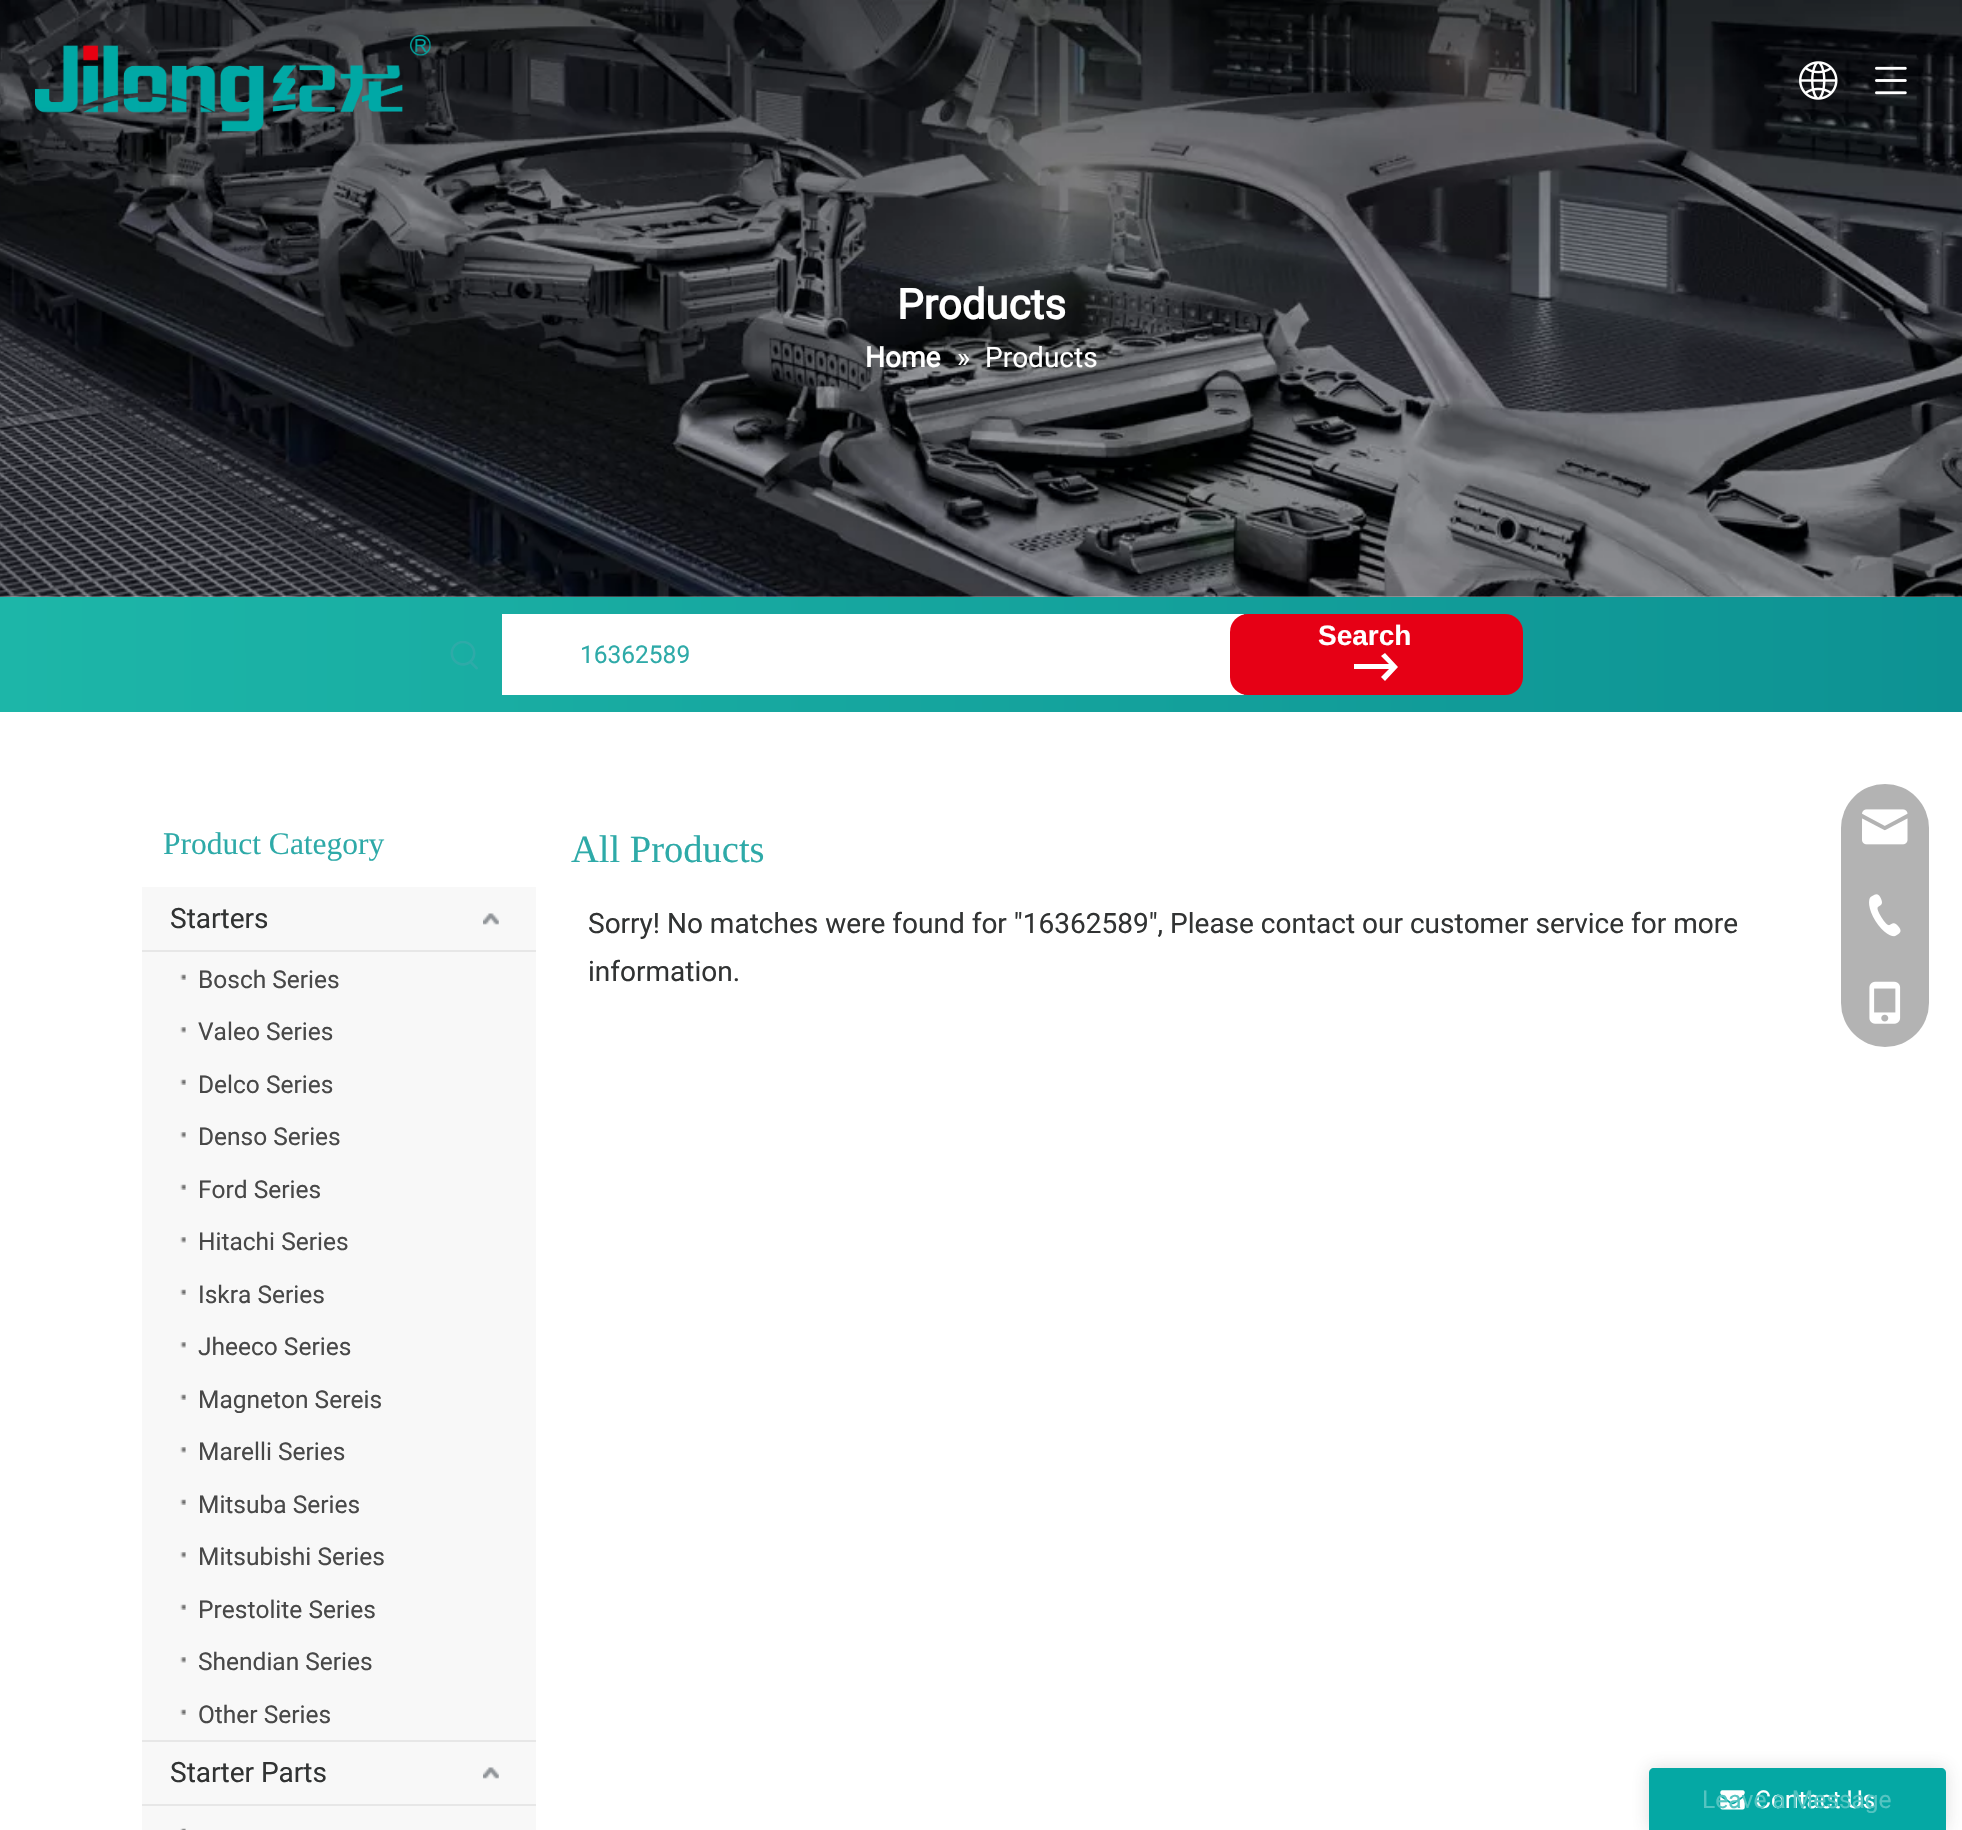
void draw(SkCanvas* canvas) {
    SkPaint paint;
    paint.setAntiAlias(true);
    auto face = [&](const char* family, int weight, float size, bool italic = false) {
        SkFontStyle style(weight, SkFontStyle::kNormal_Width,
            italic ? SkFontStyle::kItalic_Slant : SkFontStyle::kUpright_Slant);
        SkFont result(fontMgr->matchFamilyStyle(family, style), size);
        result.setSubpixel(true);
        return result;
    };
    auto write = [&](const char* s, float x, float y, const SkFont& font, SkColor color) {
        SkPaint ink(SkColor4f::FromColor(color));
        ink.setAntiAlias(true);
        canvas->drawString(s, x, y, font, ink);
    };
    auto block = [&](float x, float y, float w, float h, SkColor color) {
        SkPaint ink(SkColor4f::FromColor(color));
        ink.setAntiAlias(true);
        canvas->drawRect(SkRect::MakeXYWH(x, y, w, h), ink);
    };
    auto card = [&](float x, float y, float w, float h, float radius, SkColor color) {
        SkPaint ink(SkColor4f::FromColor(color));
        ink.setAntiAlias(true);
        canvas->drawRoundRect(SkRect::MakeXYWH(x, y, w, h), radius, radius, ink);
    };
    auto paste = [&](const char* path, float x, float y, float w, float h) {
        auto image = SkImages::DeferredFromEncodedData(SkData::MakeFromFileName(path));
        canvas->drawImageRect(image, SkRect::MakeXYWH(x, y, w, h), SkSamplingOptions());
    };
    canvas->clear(SK_ColorWHITE);
    paste("pic4.png", 0, 0, 1962, 597);
    paste("pic1.png", 35, 35, 396, 97);
    paste("pic2.png", 1799, 61, 39, 39);
    paste("pic3.png", 1875, 66, 32, 29);
    auto kFont1 = face("Roboto", 700, 42);
    write("Products", 897, 319, kFont1, SK_ColorWHITE);
    auto kFont2 = face("Roboto", 700, 28);
    write("Home", 865, 367, kFont2, SK_ColorWHITE);
    auto kFont3 = face("Roboto", 400, 28);
    write("»", 957, 367, kFont3, SK_ColorWHITE);
    write("Products", 985, 367, kFont3, SK_ColorWHITE);
    {
        const SkColor colors[] = {SkColorSetRGB(29, 182, 168), SkColorSetRGB(13, 146, 147)};
        const float stops[] = {0, 1};
        const SkPoint ends[] = {{0, 655}, {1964, 654}};
        paint.setShader(SkGradientShader::MakeLinear(ends, colors, stops, 2, SkTileMode::kClamp));
        paint.setAlpha(255);
    }
    canvas->drawRect(SkRect::MakeXYWH(0, 597, 1962, 115), paint);
    paste("pic5.png", 450, 641, 28, 29);
    block(502, 614, 742, 81, SK_ColorWHITE);
    card(1230, 614, 293, 81, 18, SkColorSetRGB(230, 0, 21));
    auto kFont4 = face("Liberation Sans", 700, 28);
    write("Search", 1318, 645, kFont4, SK_ColorWHITE);
    paint.setShader(nullptr);
    paint.setColor(SK_ColorWHITE);
    canvas->drawPath(SkPathBuilder().moveTo(1389, 669).lineTo(1354, 669).lineTo(1354, 664).lineTo(1389, 664).lineTo(1381, 656).lineTo(1385, 653).lineTo(1398, 667).lineTo(1385, 681).lineTo(1381, 677).close().detach(), paint);
    auto kFont5 = face("Roboto", 400, 24.5f);
    write("16362589", 580, 663, kFont5, SkColorSetRGB(46, 170, 168));
    auto kFont6 = face("Liberation Serif", 400, 31.5f);
    write("Product Category", 163, 854, kFont6, SkColorSetRGB(46, 170, 168));
    block(142, 887, 394, 943, SkColorSetRGB(248, 248, 248));
    block(142, 950, 394, 2, SkColorSetRGB(231, 231, 231));
    write("Starters", 170, 928, kFont3, SkColorSetRGB(49, 51, 51));
    paste("pic6.png", 483, 913, 16, 12);
    paste("pic7.png", 180, 974, 6, 6);
    write("Bosch Series", 198, 988, kFont5, SkColorSetRGB(72, 72, 72));
    paste("pic8.png", 180, 1027, 6, 6);
    write("Valeo Series", 198, 1040, kFont5, SkColorSetRGB(72, 72, 72));
    paste("pic7.png", 180, 1079, 6, 6);
    write("Delco Series", 198, 1093, kFont5, SkColorSetRGB(72, 72, 72));
    paste("pic8.png", 180, 1132, 6, 6);
    write("Denso Series", 198, 1145, kFont5, SkColorSetRGB(72, 72, 72));
    paste("pic7.png", 180, 1184, 6, 6);
    write("Ford Series", 198, 1198, kFont5, SkColorSetRGB(72, 72, 72));
    paste("pic8.png", 180, 1237, 6, 6);
    write("Hitachi Series", 198, 1250, kFont5, SkColorSetRGB(72, 72, 72));
    paste("pic7.png", 180, 1289, 6, 6);
    write("Iskra Series", 198, 1303, kFont5, SkColorSetRGB(72, 72, 72));
    paste("pic8.png", 180, 1342, 6, 6);
    write("Jheeco Series", 198, 1355, kFont5, SkColorSetRGB(72, 72, 72));
    paste("pic7.png", 180, 1394, 6, 6);
    write("Magneton Sereis", 198, 1408, kFont5, SkColorSetRGB(72, 72, 72));
    paste("pic8.png", 180, 1447, 6, 6);
    write("Marelli Series", 198, 1460, kFont5, SkColorSetRGB(72, 72, 72));
    paste("pic7.png", 180, 1499, 6, 6);
    write("Mitsuba Series", 198, 1513, kFont5, SkColorSetRGB(72, 72, 72));
    paste("pic8.png", 180, 1552, 6, 6);
    write("Mitsubishi Series", 198, 1565, kFont5, SkColorSetRGB(72, 72, 72));
    paste("pic7.png", 180, 1604, 6, 6);
    write("Prestolite Series", 198, 1618, kFont5, SkColorSetRGB(72, 72, 72));
    paste("pic8.png", 180, 1657, 6, 6);
    write("Shendian Series", 198, 1670, kFont5, SkColorSetRGB(72, 72, 72));
    paste("pic7.png", 180, 1709, 6, 6);
    write("Other Series", 198, 1723, kFont5, SkColorSetRGB(72, 72, 72));
    block(142, 1740, 394, 2, SkColorSetRGB(231, 231, 231));
    block(142, 1804, 394, 2, SkColorSetRGB(231, 231, 231));
    write("Starter Parts", 170, 1782, kFont3, SkColorSetRGB(49, 51, 51));
    paste("pic6.png", 483, 1767, 16, 12);
    paste("pic9.png", 180, 1828, 6, 2);
    auto kFont7 = face("Liberation Serif", 400, 38.5f);
    write("All Products", 571, 862, kFont7, SkColorSetRGB(46, 170, 168));
    write("Sorry! No matches were found for \"16362589\", Please contact our customer service for more", 588, 933, kFont3, SkColorSetRGB(49, 51, 51));
    write("information.", 588, 981, kFont3, SkColorSetRGB(49, 51, 51));
    card(1841, 784, 88, 263, 44, SkColorSetRGB(179, 179, 179));
    paste("pic10.png", 1862, 809, 46, 36);
    paste("pic11.png", 1869, 894, 32, 43);
    paste("pic12.png", 1869, 981, 32, 43);
    paint.setColor(SkColorSetARGB(46, 68, 68, 68));
    paint.setMaskFilter(SkMaskFilter::MakeBlur(kNormal_SkBlurStyle, 9));
    canvas->drawRoundRect(SkRect::MakeXYWH(1649, 1768, 297, 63), 5, 5, paint);
    paint.setMaskFilter(nullptr);
    paint.setColor(SkColorSetRGB(5, 168, 164));
    canvas->drawPath(SkPathBuilder().moveTo(1654, 1768).lineTo(1941, 1768).cubicTo(1944, 1768, 1946, 1770, 1946, 1773).lineTo(1946, 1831).lineTo(1649, 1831).lineTo(1649, 1773).cubicTo(1649, 1770, 1651, 1768, 1654, 1768).close().detach(), paint);
    paste("pic13.png", 1720, 1790, 25, 20);
    write("Contact Us", 1755, 1808, kFont5, SK_ColorWHITE);
    write("Leave a Message", 1702, 1808, kFont5, SkColorSetRGB(85, 196, 193));
}
